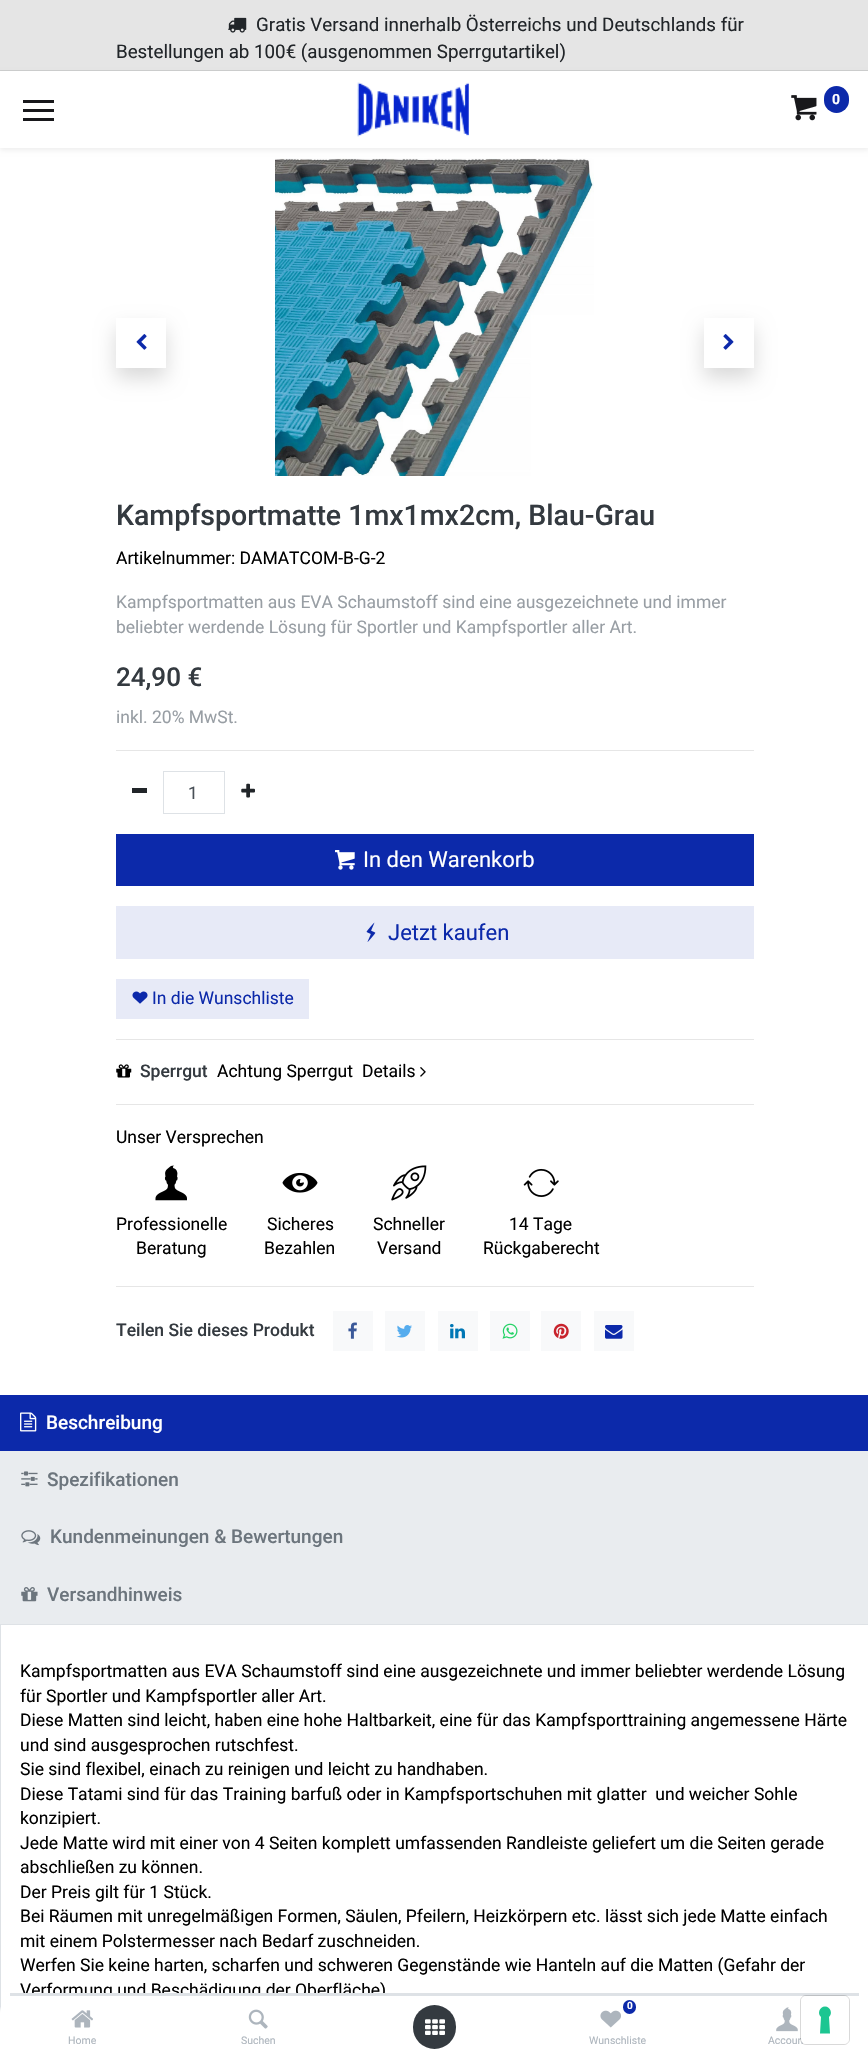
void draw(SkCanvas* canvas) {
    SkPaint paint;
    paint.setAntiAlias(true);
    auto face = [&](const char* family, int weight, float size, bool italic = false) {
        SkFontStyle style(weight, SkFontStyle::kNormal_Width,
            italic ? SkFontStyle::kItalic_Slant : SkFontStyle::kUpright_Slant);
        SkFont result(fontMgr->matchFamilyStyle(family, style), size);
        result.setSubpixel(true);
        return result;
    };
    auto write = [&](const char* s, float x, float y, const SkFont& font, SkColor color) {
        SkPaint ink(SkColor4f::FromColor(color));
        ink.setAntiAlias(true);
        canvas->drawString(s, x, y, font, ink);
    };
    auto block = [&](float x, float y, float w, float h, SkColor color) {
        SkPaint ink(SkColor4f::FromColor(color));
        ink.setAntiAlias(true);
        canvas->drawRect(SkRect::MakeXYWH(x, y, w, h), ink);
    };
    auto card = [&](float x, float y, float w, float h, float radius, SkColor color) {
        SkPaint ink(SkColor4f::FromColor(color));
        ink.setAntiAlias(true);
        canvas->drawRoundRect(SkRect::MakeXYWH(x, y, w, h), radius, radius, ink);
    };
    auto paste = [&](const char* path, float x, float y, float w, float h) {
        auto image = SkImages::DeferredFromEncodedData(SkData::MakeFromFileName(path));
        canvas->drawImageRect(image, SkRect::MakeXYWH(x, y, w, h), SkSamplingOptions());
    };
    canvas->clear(SK_ColorWHITE);
    block(0, 0, 868, 70, SkColorSetRGB(229, 229, 229));
    block(0, 70, 868, 1, SkColorSetRGB(205, 206, 206));
    paste("pic1.png", 228, 17, 19, 16);
    auto kFont1 = face("Roboto", 400, 18.75f);
    write("Gratis Versand innerhalb Österreichs und Deutschlands für", 256, 31, kFont1, SkColorSetRGB(33, 37, 41));
    write("Bestellungen ab 100€ (ausgenommen Sperrgutartikel)", 116, 58, kFont1, SkColorSetRGB(33, 37, 41));
    paste("pic5.png", 275, 158, 319, 318);
    paint.setColor(SkColorSetARGB(18, 0, 0, 0));
    paint.setMaskFilter(SkMaskFilter::MakeBlur(kNormal_SkBlurStyle, 2.5f));
    canvas->drawRect(SkRect::MakeXYWH(0, 74, 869, 76), paint);
    paint.setMaskFilter(nullptr);
    block(0, 71, 868, 77, SK_ColorWHITE);
    block(23, 100, 31, 3, SkColorSetRGB(24, 24, 27));
    block(23, 109, 31, 3, SkColorSetRGB(24, 24, 27));
    block(23, 118, 31, 3, SkColorSetRGB(24, 24, 27));
    paste("pic2.png", 357, 82, 112, 55);
    paste("pic3.png", 791, 95, 26, 26);
    card(824, 86, 25, 27, 12.5f, SkColorSetRGB(12, 41, 170));
    auto kFont2 = face("Roboto", 700, 14);
    write("0", 832, 104, kFont2, SK_ColorWHITE);
    paint.setColor(SkColorSetARGB(38, 0, 0, 0));
    paint.setMaskFilter(SkMaskFilter::MakeBlur(kNormal_SkBlurStyle, 10));
    canvas->drawRect(SkRect::MakeXYWH(116, 328, 50, 50), paint);
    paint.setMaskFilter(nullptr);
    block(116, 318, 50, 50, SK_ColorWHITE);
    paste("pic4.png", 136, 334, 11, 16);
    paint.setMaskFilter(SkMaskFilter::MakeBlur(kNormal_SkBlurStyle, 10));
    canvas->drawRect(SkRect::MakeXYWH(704, 328, 50, 50), paint);
    paint.setMaskFilter(nullptr);
    block(704, 318, 50, 50, SK_ColorWHITE);
    paste("pic6.png", 723, 334, 11, 16);
    auto kFont3 = face("Roboto", 500, 28.5f);
    write("Kampfsportmatte 1mx1mx2cm, Blau-Grau", 116, 525, kFont3, SkColorSetRGB(52, 58, 64));
    auto kFont4 = face("Roboto", 400, 17.5f);
    write("Artikelnummer: DAMATCOM-B-G-2", 116, 564, kFont4, SK_ColorBLACK);
    write("Kampfsportmatten aus EVA Schaumstoff sind eine ausgezeichnete und immer", 116, 608, kFont4, SkColorSetRGB(152, 158, 164));
    write("beliebter werdende Lösung für Sportler und Kampfsportler aller Art.", 116, 633, kFont4, SkColorSetRGB(152, 158, 164));
    auto kFont5 = face("Roboto", 500, 26);
    write("24,90 €", 116, 686, kFont5, SkColorSetRGB(52, 58, 64));
    write("inkl. 20% MwSt.", 116, 723, kFont4, SkColorSetRGB(152, 158, 164));
    block(116, 750, 638, 1, SkColorSetRGB(230, 230, 230));
    block(132, 788, 15, 5, SkColorSetRGB(33, 37, 41));
    paint.setStyle(SkPaint::kStroke_Style);
    paint.setStrokeWidth(1);
    paint.setColor(SkColorSetRGB(222, 226, 230));
    canvas->drawRect(SkRect::MakeXYWH(163.5f, 771.5f, 61, 42), paint);
    write("1", 188, 799, kFont4, SkColorSetRGB(73, 80, 87));
    paste("pic7.png", 241, 783, 14, 15);
    block(116, 834, 638, 52, SkColorSetRGB(12, 41, 170));
    paste("pic8.png", 335, 850, 20, 20);
    auto kFont6 = face("Roboto", 400, 22);
    write("In den Warenkorb", 363, 867, kFont6, SK_ColorWHITE);
    block(116, 906, 638, 53, SkColorSetRGB(231, 234, 247));
    paste("pic9.png", 366, 922, 10, 20);
    write("Jetzt kaufen", 388, 940, kFont6, SkColorSetRGB(12, 41, 170));
    block(116, 979, 193, 40, SkColorSetRGB(231, 234, 247));
    paste("pic10.png", 132, 991, 16, 13);
    write("In die Wunschliste", 152, 1004, kFont4, SkColorSetRGB(12, 41, 170));
    block(116, 1039, 638, 1, SkColorSetRGB(230, 230, 230));
    paste("pic11.png", 116, 1064, 16, 14);
    auto kFont7 = face("Roboto", 500, 17.5f);
    write("Sperrgut", 140, 1077, kFont7, SkColorSetRGB(52, 58, 64));
    write("Achtung Sperrgut", 217, 1077, kFont4, SK_ColorBLACK);
    write("Details", 362, 1077, kFont4, SK_ColorBLACK);
    paste("pic12.png", 420, 1067, 6, 10);
    block(116, 1104, 638, 1, SkColorSetRGB(230, 230, 230));
    write("Unser Versprechen", 116, 1143, kFont4, SK_ColorBLACK);
    paste("pic13.png", 155, 1165, 32, 36);
    write("Professionelle", 116, 1230, kFont4, SK_ColorBLACK);
    write("Beratung", 136, 1254, kFont4, SK_ColorBLACK);
    paste("pic14.png", 282, 1172, 36, 21);
    write("Sicheres", 267, 1230, kFont4, SK_ColorBLACK);
    write("Bezahlen", 264, 1254, kFont4, SK_ColorBLACK);
    paste("pic15.png", 391, 1165, 36, 36);
    write("Schneller", 373, 1230, kFont4, SK_ColorBLACK);
    write("Versand", 377, 1254, kFont4, SK_ColorBLACK);
    paste("pic16.png", 523, 1168, 36, 29);
    write("14 Tage", 509, 1230, kFont4, SK_ColorBLACK);
    write("Rückgaberecht", 483, 1254, kFont4, SK_ColorBLACK);
    block(116, 1286, 638, 1, SkColorSetRGB(230, 230, 230));
    write("Teilen Sie dieses Produkt", 116, 1336, kFont7, SkColorSetRGB(52, 58, 64));
    block(333, 1311, 40, 40, SkColorSetRGB(248, 249, 250));
    paste("pic17.png", 348, 1322, 9, 17);
    block(385, 1311, 40, 40, SkColorSetRGB(248, 249, 250));
    paste("pic18.png", 396, 1325, 16, 13);
    block(438, 1311, 40, 40, SkColorSetRGB(248, 249, 250));
    paste("pic19.png", 450, 1324, 15, 15);
    block(490, 1311, 40, 40, SkColorSetRGB(248, 249, 250));
    paste("pic20.png", 502, 1323, 16, 16);
    block(541, 1311, 40, 40, SkColorSetRGB(248, 249, 250));
    paste("pic21.png", 553, 1323, 16, 16);
    block(594, 1311, 40, 40, SkColorSetRGB(248, 249, 250));
    paste("pic22.png", 605, 1325, 18, 14);
    block(0, 1451, 868, 173, SkColorSetRGB(233, 236, 239));
    block(0, 1624, 868, 1, SkColorSetRGB(222, 226, 230));
    block(0, 1395, 868, 56, SkColorSetRGB(12, 41, 170));
    paste("pic23.png", 20, 1412, 17, 20);
    auto kFont8 = face("Roboto", 500, 19);
    write("Beschreibung", 46, 1429, kFont8, SK_ColorWHITE);
    paste("pic24.png", 21, 1471, 17, 16);
    write("Spezifikationen", 47, 1486, kFont8, SkColorSetRGB(108, 117, 125));
    paste("pic25.png", 21, 1530, 20, 16);
    write("Kundenmeinungen & Bewertungen", 50, 1543, kFont8, SkColorSetRGB(108, 117, 125));
    paste("pic26.png", 21, 1587, 17, 15);
    write("Versandhinweis", 47, 1601, kFont8, SkColorSetRGB(108, 117, 125));
    block(0, 1625, 1, 388, SkColorSetRGB(222, 226, 230));
    write("Kampfsportmatten aus EVA Schaumstoff sind eine ausgezeichnete und immer beliebter werdende Lösung", 20, 1677, kFont4, SK_ColorBLACK);
    write("für Sportler und Kampfsportler aller Art.", 20, 1702, kFont4, SK_ColorBLACK);
    write("Diese Matten sind leicht, haben eine hohe Haltbarkeit, eine für das Kampfsporttraining angemessene Härte", 20, 1726, kFont4, SK_ColorBLACK);
    write("und sind ausgesprochen rutschfest.", 20, 1751, kFont4, SK_ColorBLACK);
    write("Sie sind flexibel, einach zu reinigen und leicht zu handhaben.", 20, 1775, kFont4, SK_ColorBLACK);
    write("Diese Tatami sind für das Training barfuß oder in Kampfsportschuhen mit glatter  und weicher Sohle", 20, 1800, kFont4, SK_ColorBLACK);
    write("konzipiert.", 20, 1824, kFont4, SK_ColorBLACK);
    write("Jede Matte wird mit einer von 4 Seiten komplett umfassenden Randleiste geliefert um die Seiten gerade", 20, 1849, kFont4, SK_ColorBLACK);
    write("abschließen zu können.", 20, 1873, kFont4, SK_ColorBLACK);
    write("Der Preis gilt für 1 Stück.", 20, 1898, kFont4, SK_ColorBLACK);
    write("Bei Räumen mit unregelmäßigen Formen, Säulen, Pfeilern, Heizkörpern etc. lässt sich jede Matte einfach", 20, 1922, kFont4, SK_ColorBLACK);
    write("mit einem Polstermesser nach Bedarf zuschneiden.", 20, 1947, kFont4, SK_ColorBLACK);
    write("Werfen Sie keine harten, scharfen und schweren Gegenstände wie Hanteln auf die Matten (Gefahr der", 20, 1971, kFont4, SK_ColorBLACK);
    write("Verformung und Beschädigung der Oberfläche)", 20, 1996, kFont4, SK_ColorBLACK);
    paint.setStyle(SkPaint::kFill_Style);
    paint.setColor(SK_ColorWHITE);
    canvas->drawPath(SkPathBuilder().moveTo(20, 1993).lineTo(849, 1993).cubicTo(860, 1993, 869, 2002, 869, 2013).lineTo(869, 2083).lineTo(0, 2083).lineTo(0, 2013).cubicTo(0, 2002, 9, 1993, 20, 1993).close().detach(), paint);
    block(10, 1993, 849, 3, SkColorSetRGB(222, 226, 230));
    paste("pic27.png", 71, 2010, 22, 18);
    auto kFont9 = face("Roboto", 400, 10.5f);
    write("Home", 68, 2044, kFont9, SkColorSetRGB(173, 181, 189));
    paste("pic28.png", 248, 2009, 20, 20);
    write("Suchen", 241, 2044, kFont9, SkColorSetRGB(173, 181, 189));
    card(413, 2005, 43, 44, 21.5f, SkColorSetRGB(52, 58, 64));
    paste("pic29.png", 425, 2019, 20, 16);
    card(623, 2000, 13, 14, 6.5f, SkColorSetRGB(12, 41, 170));
    auto kFont10 = face("Roboto", 700, 10);
    write("0", 627, 2009, kFont10, SK_ColorWHITE);
    paste("pic30.png", 600, 2010, 21, 18);
    write("Wunschliste", 589, 2044, kFont9, SkColorSetRGB(173, 181, 189));
    paste("pic31.png", 776, 2007, 22, 25);
    write("Accoun", 768, 2044, kFont9, SkColorSetRGB(173, 181, 189));
    paint.setStyle(SkPaint::kStroke_Style);
    paint.setColor(SkColorSetARGB(38, 0, 0, 0));
    canvas->drawRoundRect(SkRect::MakeXYWH(800.5f, 1995.5f, 49, 49), 5.5f, 5.5f, paint);
    card(801, 1996, 48, 48, 5, SK_ColorWHITE);
    paint.setStyle(SkPaint::kFill_Style);
    paint.setColor(SkColorSetRGB(28, 198, 145));
    canvas->drawPath(SkPathBuilder(SkPathFillType::kEvenOdd).moveTo(825, 2006.5f).cubicTo(830.5f, 2006.5f, 833, 2013.5f, 829, 2017).lineTo(830, 2033.5f).lineTo(820, 2033.5f).lineTo(821, 2017).cubicTo(817, 2013.5f, 819.5f, 2006.5f, 825, 2006.5f).close().detach(), paint);
}
